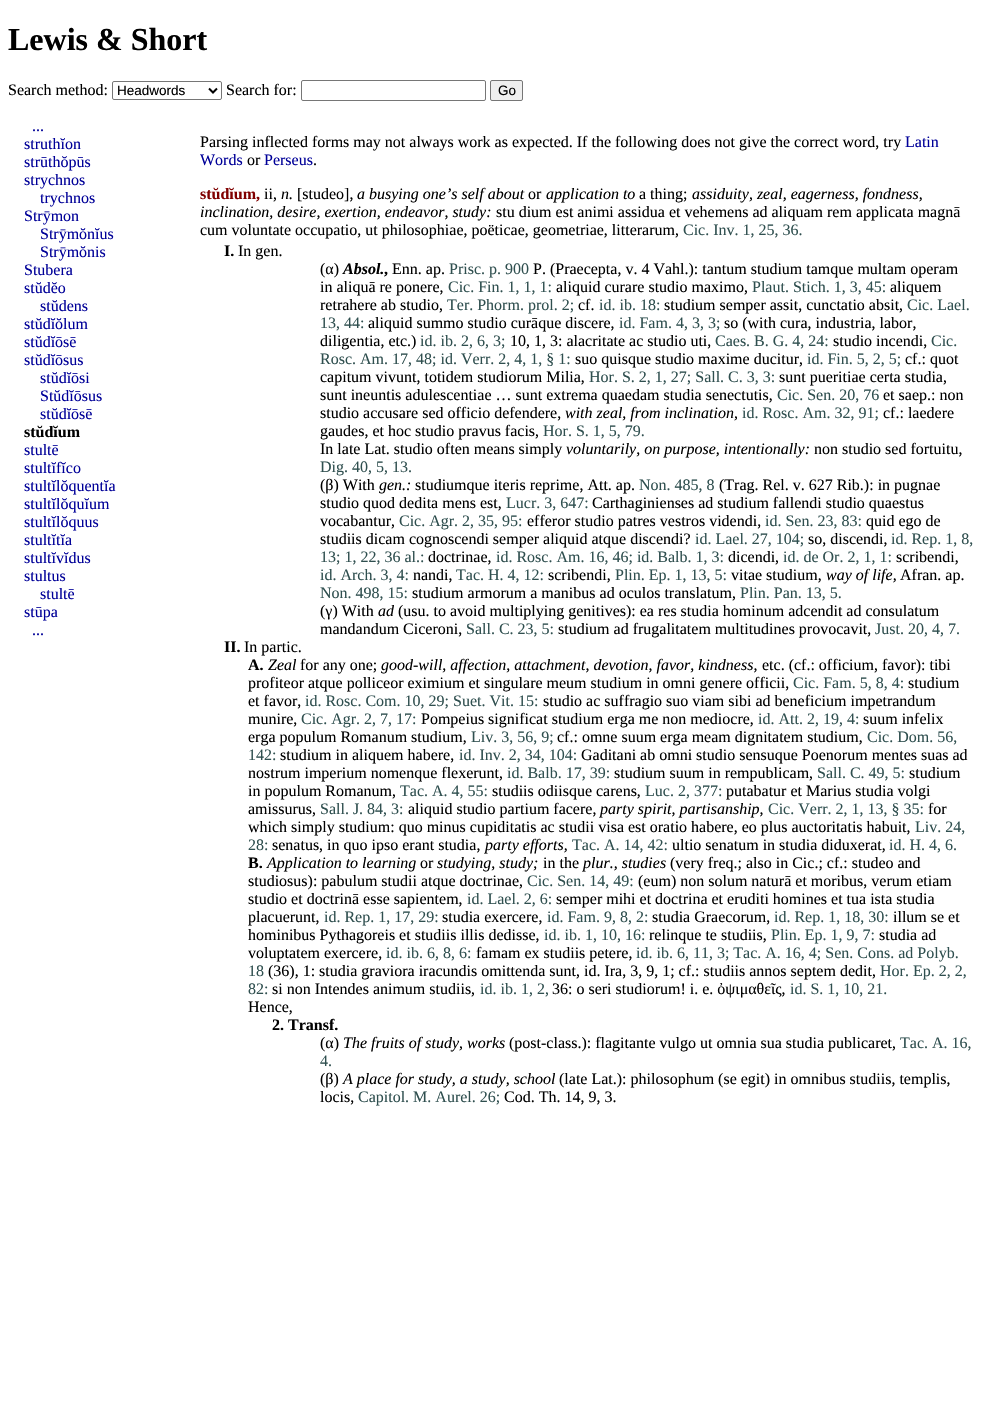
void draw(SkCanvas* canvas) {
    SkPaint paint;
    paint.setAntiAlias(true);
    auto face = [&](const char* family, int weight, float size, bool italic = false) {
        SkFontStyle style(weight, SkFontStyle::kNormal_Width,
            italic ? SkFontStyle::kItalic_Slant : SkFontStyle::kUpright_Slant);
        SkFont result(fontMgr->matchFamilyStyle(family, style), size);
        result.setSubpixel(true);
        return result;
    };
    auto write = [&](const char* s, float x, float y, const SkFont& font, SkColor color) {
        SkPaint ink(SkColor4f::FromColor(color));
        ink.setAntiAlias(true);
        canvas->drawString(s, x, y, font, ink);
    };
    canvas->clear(SK_ColorWHITE);
    auto kFont1 = face("Liberation Serif", 700, 32);
    write("Lewis & Short", 8, 50, kFont1, SK_ColorBLACK);
    auto kFont2 = face("Liberation Serif", 400, 16);
    write("Search method:", 8, 95, kFont2, SK_ColorBLACK);
    paint.setStyle(SkPaint::kStroke_Style);
    paint.setStrokeWidth(1);
    paint.setColor(SkColorSetRGB(118, 118, 118));
    canvas->drawRoundRect(SkRect::MakeXYWH(112.5f, 81.5f, 109, 18), 1.5f, 1.5f, paint);
    paint.setStrokeWidth(2);
    paint.setColor(SK_ColorBLACK);
    canvas->drawPath(SkPathBuilder().moveTo(209, 88.5f).lineTo(213, 92.5f).lineTo(217, 88.5f).detach(), paint);
    auto kFont3 = face("Liberation Sans", 400, 13.5f);
    write("Headwords", 117, 95, kFont3, SK_ColorBLACK);
    write("Search for:", 226, 95, kFont2, SK_ColorBLACK);
    paint.setStrokeWidth(1);
    paint.setColor(SkColorSetRGB(118, 118, 118));
    canvas->drawRoundRect(SkRect::MakeXYWH(301.5f, 80.5f, 184, 20), 1.5f, 1.5f, paint);
    paint.setStyle(SkPaint::kFill_Style);
    paint.setColor(SkColorSetRGB(239, 239, 239));
    canvas->drawRoundRect(SkRect::MakeXYWH(490.5f, 80.5f, 32, 20), 1.5f, 1.5f, paint);
    paint.setStyle(SkPaint::kStroke_Style);
    paint.setColor(SkColorSetRGB(118, 118, 118));
    canvas->drawRoundRect(SkRect::MakeXYWH(490.5f, 80.5f, 32, 20), 1.5f, 1.5f, paint);
    write("Go", 498, 95, kFont3, SK_ColorBLACK);
    write("...", 32, 131, kFont2, SkColorSetRGB(0, 0, 152));
    write("struthĭon", 24, 149, kFont2, SkColorSetRGB(0, 0, 152));
    write("strūthŏpūs", 24, 167, kFont2, SkColorSetRGB(0, 0, 152));
    write("strychnos", 24, 185, kFont2, SkColorSetRGB(0, 0, 152));
    write("trychnos", 40, 203, kFont2, SkColorSetRGB(0, 0, 152));
    write("Strȳmon", 24, 221, kFont2, SkColorSetRGB(0, 0, 152));
    write("Strȳmŏnĭus", 40, 239, kFont2, SkColorSetRGB(0, 0, 152));
    write("Strȳmŏnis", 40, 257, kFont2, SkColorSetRGB(0, 0, 152));
    write("Stubera", 24, 275, kFont2, SkColorSetRGB(0, 0, 152));
    write("stŭdĕo", 24, 293, kFont2, SkColorSetRGB(0, 0, 152));
    write("stŭdens", 40, 311, kFont2, SkColorSetRGB(0, 0, 152));
    write("stŭdĭŏlum", 24, 329, kFont2, SkColorSetRGB(0, 0, 152));
    write("stŭdĭōsē", 24, 347, kFont2, SkColorSetRGB(0, 0, 152));
    write("stŭdĭōsus", 24, 365, kFont2, SkColorSetRGB(0, 0, 152));
    write("stŭdĭōsi", 40, 383, kFont2, SkColorSetRGB(0, 0, 152));
    write("Stŭdĭōsus", 40, 401, kFont2, SkColorSetRGB(0, 0, 152));
    write("stŭdĭōsē", 40, 419, kFont2, SkColorSetRGB(0, 0, 152));
    auto kFont4 = face("Liberation Serif", 700, 16);
    write("stŭdĭum", 24, 437, kFont4, SK_ColorBLACK);
    write("stultē", 24, 455, kFont2, SkColorSetRGB(0, 0, 152));
    write("stultĭfĭco", 24, 473, kFont2, SkColorSetRGB(0, 0, 152));
    write("stultĭlŏquentĭa", 24, 491, kFont2, SkColorSetRGB(0, 0, 152));
    write("stultĭlŏquĭum", 24, 509, kFont2, SkColorSetRGB(0, 0, 152));
    write("stultĭlŏquus", 24, 527, kFont2, SkColorSetRGB(0, 0, 152));
    write("stultĭtĭa", 24, 545, kFont2, SkColorSetRGB(0, 0, 152));
    write("stultĭvĭdus", 24, 563, kFont2, SkColorSetRGB(0, 0, 152));
    write("stultus", 24, 581, kFont2, SkColorSetRGB(0, 0, 152));
    write("stultē", 40, 599, kFont2, SkColorSetRGB(0, 0, 152));
    write("stūpa", 24, 617, kFont2, SkColorSetRGB(0, 0, 152));
    write("...", 32, 635, kFont2, SkColorSetRGB(0, 0, 152));
    write("Parsing inflected forms may not always work as expected. If the following does not give the correct word, try", 200, 147, kFont2, SK_ColorBLACK);
    write("Latin", 905, 147, kFont2, SkColorSetRGB(0, 0, 152));
    write("Words", 200, 165, kFont2, SkColorSetRGB(0, 0, 152));
    write("or", 247, 165, kFont2, SK_ColorBLACK);
    write("Perseus", 264, 165, kFont2, SkColorSetRGB(0, 0, 152));
    write(".", 313, 165, kFont2, SK_ColorBLACK);
    write("stŭdĭum,", 200, 199, kFont4, SkColorSetRGB(128, 0, 0));
    write("ii,", 264, 199, kFont2, SK_ColorBLACK);
    auto kFont5 = face("Liberation Serif", 400, 16, true);
    write("n.", 281, 199, kFont5, SK_ColorBLACK);
    write("[studeo],", 297, 199, kFont2, SK_ColorBLACK);
    write("a busying one’s self about", 357, 199, kFont5, SK_ColorBLACK);
    write("or", 528, 199, kFont2, SK_ColorBLACK);
    write("application to", 546, 199, kFont5, SK_ColorBLACK);
    write("a thing;", 639, 199, kFont2, SK_ColorBLACK);
    write("assiduity, zeal, eagerness, fondness,", 692, 199, kFont5, SK_ColorBLACK);
    write("inclination, desire, exertion, endeavor, study:", 200, 217, kFont5, SK_ColorBLACK);
    write("stu dium est animi assidua et vehemens ad aliquam rem applicata magnā", 496, 217, kFont2, SK_ColorBLACK);
    write("cum voluntate occupatio, ut philosophiae, poëticae, geometriae, litterarum,", 200, 235, kFont2, SK_ColorBLACK);
    write("Cic. Inv. 1, 25, 36.", 683, 235, kFont2, SkColorSetRGB(47, 79, 79));
    write("I.", 224, 256, kFont4, SK_ColorBLACK);
    write("In gen.", 238, 256, kFont2, SK_ColorBLACK);
    write("(α)", 320, 274, kFont2, SK_ColorBLACK);
    auto kFont6 = face("Liberation Serif", 700, 16, true);
    write("Absol.", 343, 274, kFont6, SK_ColorBLACK);
    write(",", 384, 274, kFont4, SK_ColorBLACK);
    write("Enn. ap.", 392, 274, kFont2, SK_ColorBLACK);
    write("Prisc. p. 900", 449, 274, kFont2, SkColorSetRGB(47, 79, 79));
    write("P. (Praecepta, v. 4 Vahl.): tantum studium tamque multam operam", 533, 274, kFont2, SK_ColorBLACK);
    write("in aliquā re ponere,", 320, 292, kFont2, SK_ColorBLACK);
    write("Cic. Fin. 1, 1, 1:", 448, 292, kFont2, SkColorSetRGB(47, 79, 79));
    write("aliquid curare studio maximo,", 556, 292, kFont2, SK_ColorBLACK);
    write("Plaut. Stich. 1, 3, 45:", 752, 292, kFont2, SkColorSetRGB(47, 79, 79));
    write("aliquem", 890, 292, kFont2, SK_ColorBLACK);
    write("retrahere ab studio,", 320, 310, kFont2, SK_ColorBLACK);
    write("Ter. Phorm. prol. 2;", 447, 310, kFont2, SkColorSetRGB(47, 79, 79));
    write("cf.", 578, 310, kFont2, SK_ColorBLACK);
    write("id. ib. 18:", 599, 310, kFont2, SkColorSetRGB(47, 79, 79));
    write("studium semper assit, cunctatio absit,", 664, 310, kFont2, SK_ColorBLACK);
    write("Cic. Lael.", 907, 310, kFont2, SkColorSetRGB(47, 79, 79));
    write("13, 44:", 320, 328, kFont2, SkColorSetRGB(47, 79, 79));
    write("aliquid summo studio curāque discere,", 368, 328, kFont2, SK_ColorBLACK);
    write("id. Fam. 4, 3, 3;", 619, 328, kFont2, SkColorSetRGB(47, 79, 79));
    write("so (with cura, industria, labor,", 724, 328, kFont2, SK_ColorBLACK);
    write("diligentia, etc.)", 320, 346, kFont2, SK_ColorBLACK);
    write("id. ib. 2, 6, 3;", 420, 346, kFont2, SkColorSetRGB(47, 79, 79));
    write("10, 1, 3: alacritate ac studio uti,", 510, 346, kFont2, SK_ColorBLACK);
    write("Caes. B. G. 4, 24:", 715, 346, kFont2, SkColorSetRGB(47, 79, 79));
    write("studio incendi,", 833, 346, kFont2, SK_ColorBLACK);
    write("Cic.", 931, 346, kFont2, SkColorSetRGB(47, 79, 79));
    write("Rosc. Am. 17, 48; id. Verr. 2, 4, 1, § 1:", 320, 364, kFont2, SkColorSetRGB(47, 79, 79));
    write("suo quisque studio maxime ducitur,", 575, 364, kFont2, SK_ColorBLACK);
    write("id. Fin. 5, 2, 5;", 807, 364, kFont2, SkColorSetRGB(47, 79, 79));
    write("cf.: quot", 905, 364, kFont2, SK_ColorBLACK);
    write("capitum vivunt, totidem studiorum Milia,", 320, 382, kFont2, SK_ColorBLACK);
    write("Hor. S. 2, 1, 27; Sall. C. 3, 3:", 589, 382, kFont2, SkColorSetRGB(47, 79, 79));
    write("sunt pueritiae certa studia,", 779, 382, kFont2, SK_ColorBLACK);
    write("sunt ineuntis adulescentiae … sunt extrema quaedam studia senectutis,", 320, 400, kFont2, SK_ColorBLACK);
    write("Cic. Sen. 20, 76", 777, 400, kFont2, SkColorSetRGB(47, 79, 79));
    write("et saep.: non", 883, 400, kFont2, SK_ColorBLACK);
    write("studio accusare sed officio defendere,", 320, 418, kFont2, SK_ColorBLACK);
    write("with zeal, from inclination,", 565, 418, kFont5, SK_ColorBLACK);
    write("id. Rosc. Am. 32, 91;", 742, 418, kFont2, SkColorSetRGB(47, 79, 79));
    write("cf.: laedere", 883, 418, kFont2, SK_ColorBLACK);
    write("gaudes, et hoc studio pravus facis,", 320, 436, kFont2, SK_ColorBLACK);
    write("Hor. S. 1, 5, 79.", 543, 436, kFont2, SkColorSetRGB(47, 79, 79));
    write("In late Lat. studio often means simply", 320, 454, kFont2, SK_ColorBLACK);
    write("voluntarily, on purpose, intentionally:", 566, 454, kFont5, SK_ColorBLACK);
    write("non studio sed fortuitu,", 814, 454, kFont2, SK_ColorBLACK);
    write("Dig. 40, 5, 13.", 320, 472, kFont2, SkColorSetRGB(47, 79, 79));
    write("(β) With", 320, 490, kFont2, SK_ColorBLACK);
    write("gen.:", 379, 490, kFont5, SK_ColorBLACK);
    write("studiumque iteris reprime, Att. ap.", 415, 490, kFont2, SK_ColorBLACK);
    write("Non. 485, 8", 639, 490, kFont2, SkColorSetRGB(47, 79, 79));
    write("(Trag. Rel. v. 627 Rib.): in pugnae", 719, 490, kFont2, SK_ColorBLACK);
    write("studio quod dedita mens est,", 320, 508, kFont2, SK_ColorBLACK);
    write("Lucr. 3, 647:", 506, 508, kFont2, SkColorSetRGB(47, 79, 79));
    write("Carthaginienses ad studium fallendi studio quaestus", 592, 508, kFont2, SK_ColorBLACK);
    write("vocabantur,", 320, 526, kFont2, SK_ColorBLACK);
    write("Cic. Agr. 2, 35, 95:", 399, 526, kFont2, SkColorSetRGB(47, 79, 79));
    write("efferor studio patres vestros videndi,", 527, 526, kFont2, SK_ColorBLACK);
    write("id. Sen. 23, 83:", 765, 526, kFont2, SkColorSetRGB(47, 79, 79));
    write("quid ego de", 866, 526, kFont2, SK_ColorBLACK);
    write("studiis dicam cognoscendi semper aliquid atque discendi?", 320, 544, kFont2, SK_ColorBLACK);
    write("id. Lael. 27, 104;", 695, 544, kFont2, SkColorSetRGB(47, 79, 79));
    write("so, discendi,", 808, 544, kFont2, SK_ColorBLACK);
    write("id. Rep. 1, 8,", 891, 544, kFont2, SkColorSetRGB(47, 79, 79));
    write("13; 1, 22, 36 al.:", 320, 562, kFont2, SkColorSetRGB(47, 79, 79));
    write("doctrinae,", 428, 562, kFont2, SK_ColorBLACK);
    write("id. Rosc. Am. 16, 46; id. Balb. 1, 3:", 496, 562, kFont2, SkColorSetRGB(47, 79, 79));
    write("dicendi,", 728, 562, kFont2, SK_ColorBLACK);
    write("id. de Or. 2, 1, 1:", 783, 562, kFont2, SkColorSetRGB(47, 79, 79));
    write("scribendi,", 896, 562, kFont2, SK_ColorBLACK);
    write("id. Arch. 3, 4:", 320, 580, kFont2, SkColorSetRGB(47, 79, 79));
    write("nandi,", 413, 580, kFont2, SK_ColorBLACK);
    write("Tac. H. 4, 12:", 456, 580, kFont2, SkColorSetRGB(47, 79, 79));
    write("scribendi,", 548, 580, kFont2, SK_ColorBLACK);
    write("Plin. Ep. 1, 13, 5:", 615, 580, kFont2, SkColorSetRGB(47, 79, 79));
    write("vitae studium,", 731, 580, kFont2, SK_ColorBLACK);
    write("way of life,", 826, 580, kFont5, SK_ColorBLACK);
    write("Afran. ap.", 900, 580, kFont2, SK_ColorBLACK);
    write("Non. 498, 15:", 320, 598, kFont2, SkColorSetRGB(47, 79, 79));
    write("studium armorum a manibus ad oculos translatum,", 412, 598, kFont2, SK_ColorBLACK);
    write("Plin. Pan. 13, 5.", 740, 598, kFont2, SkColorSetRGB(47, 79, 79));
    write("(γ) With", 320, 616, kFont2, SK_ColorBLACK);
    write("ad", 378, 616, kFont5, SK_ColorBLACK);
    write("(usu. to avoid multiplying genitives): ea res studia hominum adcendit ad consulatum", 398, 616, kFont2, SK_ColorBLACK);
    write("mandandum Ciceroni,", 320, 634, kFont2, SK_ColorBLACK);
    write("Sall. C. 23, 5:", 466, 634, kFont2, SkColorSetRGB(47, 79, 79));
    write("studium ad frugalitatem multitudines provocavit,", 558, 634, kFont2, SK_ColorBLACK);
    write("Just. 20, 4, 7.", 875, 634, kFont2, SkColorSetRGB(47, 79, 79));
    write("II.", 224, 652, kFont4, SK_ColorBLACK);
    write("In partic.", 244, 652, kFont2, SK_ColorBLACK);
    write("A.", 248, 670, kFont4, SK_ColorBLACK);
    write("Zeal", 268, 670, kFont5, SK_ColorBLACK);
    write("for any one;", 300, 670, kFont2, SK_ColorBLACK);
    write("good-will, affection, attachment, devotion, favor, kindness,", 381, 670, kFont5, SK_ColorBLACK);
    write("etc. (cf.: officium, favor): tibi", 762, 670, kFont2, SK_ColorBLACK);
    write("profiteor atque polliceor eximium et singulare meum studium in omni genere officii,", 248, 688, kFont2, SK_ColorBLACK);
    write("Cic. Fam. 5, 8, 4:", 793, 688, kFont2, SkColorSetRGB(47, 79, 79));
    write("studium", 908, 688, kFont2, SK_ColorBLACK);
    write("et favor,", 248, 706, kFont2, SK_ColorBLACK);
    write("id. Rosc. Com. 10, 29; Suet. Vit. 15:", 305, 706, kFont2, SkColorSetRGB(47, 79, 79));
    write("studio ac suffragio suo viam sibi ad beneficium impetrandum", 543, 706, kFont2, SK_ColorBLACK);
    write("munire,", 248, 724, kFont2, SK_ColorBLACK);
    write("Cic. Agr. 2, 7, 17:", 301, 724, kFont2, SkColorSetRGB(47, 79, 79));
    write("Pompeius significat studium erga me non mediocre,", 421, 724, kFont2, SK_ColorBLACK);
    write("id. Att. 2, 19, 4:", 758, 724, kFont2, SkColorSetRGB(47, 79, 79));
    write("suum infelix", 863, 724, kFont2, SK_ColorBLACK);
    write("erga populum Romanum studium,", 248, 742, kFont2, SK_ColorBLACK);
    write("Liv. 3, 56, 9;", 471, 742, kFont2, SkColorSetRGB(47, 79, 79));
    write("cf.: omne suum erga meam dignitatem studium,", 557, 742, kFont2, SK_ColorBLACK);
    write("Cic. Dom. 56,", 867, 742, kFont2, SkColorSetRGB(47, 79, 79));
    write("142:", 248, 760, kFont2, SkColorSetRGB(47, 79, 79));
    write("studium in aliquem habere,", 280, 760, kFont2, SK_ColorBLACK);
    write("id. Inv. 2, 34, 104:", 459, 760, kFont2, SkColorSetRGB(47, 79, 79));
    write("Gaditani ab omni studio sensuque Poenorum mentes suas ad", 581, 760, kFont2, SK_ColorBLACK);
    write("nostrum imperium nomenque flexerunt,", 248, 778, kFont2, SK_ColorBLACK);
    write("id. Balb. 17, 39:", 507, 778, kFont2, SkColorSetRGB(47, 79, 79));
    write("studium suum in rempublicam,", 614, 778, kFont2, SK_ColorBLACK);
    write("Sall. C. 49, 5:", 817, 778, kFont2, SkColorSetRGB(47, 79, 79));
    write("studium", 909, 778, kFont2, SK_ColorBLACK);
    write("in populum Romanum,", 248, 796, kFont2, SK_ColorBLACK);
    write("Tac. A. 4, 55:", 400, 796, kFont2, SkColorSetRGB(47, 79, 79));
    write("studiis odiisque carens,", 492, 796, kFont2, SK_ColorBLACK);
    write("Luc. 2, 377:", 645, 796, kFont2, SkColorSetRGB(47, 79, 79));
    write("putabatur et Marius studia volgi", 726, 796, kFont2, SK_ColorBLACK);
    write("amissurus,", 248, 814, kFont2, SK_ColorBLACK);
    write("Sall. J. 84, 3:", 320, 814, kFont2, SkColorSetRGB(47, 79, 79));
    write("aliquid studio partium facere,", 408, 814, kFont2, SK_ColorBLACK);
    write("party spirit, partisanship,", 600, 814, kFont5, SK_ColorBLACK);
    write("Cic. Verr. 2, 1, 13, § 35:", 768, 814, kFont2, SkColorSetRGB(47, 79, 79));
    write("for", 928, 814, kFont2, SK_ColorBLACK);
    write("which simply studium: quo minus cupiditatis ac studii visa est oratio habere, eo plus auctoritatis habuit,", 248, 832, kFont2, SK_ColorBLACK);
    write("Liv. 24,", 915, 832, kFont2, SkColorSetRGB(47, 79, 79));
    write("28:", 248, 850, kFont2, SkColorSetRGB(47, 79, 79));
    write("senatus, in quo ipso erant studia,", 272, 850, kFont2, SK_ColorBLACK);
    write("party efforts,", 485, 850, kFont5, SK_ColorBLACK);
    write("Tac. A. 14, 42:", 572, 850, kFont2, SkColorSetRGB(47, 79, 79));
    write("ultio senatum in studia diduxerat,", 672, 850, kFont2, SK_ColorBLACK);
    write("id. H. 4, 6.", 889, 850, kFont2, SkColorSetRGB(47, 79, 79));
    write("B.", 248, 868, kFont4, SK_ColorBLACK);
    write("Application to learning", 267, 868, kFont5, SK_ColorBLACK);
    write("or", 420, 868, kFont2, SK_ColorBLACK);
    write("studying, study;", 437, 868, kFont5, SK_ColorBLACK);
    write("in the", 543, 868, kFont2, SK_ColorBLACK);
    write("plur., studies", 583, 868, kFont5, SK_ColorBLACK);
    write("(very freq.; also in Cic.; cf.: studeo and", 670, 868, kFont2, SK_ColorBLACK);
    write("studiosus): pabulum studii atque doctrinae,", 248, 886, kFont2, SK_ColorBLACK);
    write("Cic. Sen. 14, 49:", 527, 886, kFont2, SkColorSetRGB(47, 79, 79));
    write("(eum) non solum naturā et moribus, verum etiam", 638, 886, kFont2, SK_ColorBLACK);
    write("studio et doctrinā esse sapientem,", 248, 904, kFont2, SK_ColorBLACK);
    write("id. Lael. 2, 6:", 467, 904, kFont2, SkColorSetRGB(47, 79, 79));
    write("semper mihi et doctrina et eruditi homines et tua ista studia", 556, 904, kFont2, SK_ColorBLACK);
    write("placuerunt,", 248, 922, kFont2, SK_ColorBLACK);
    write("id. Rep. 1, 17, 29:", 324, 922, kFont2, SkColorSetRGB(47, 79, 79));
    write("studia exercere,", 442, 922, kFont2, SK_ColorBLACK);
    write("id. Fam. 9, 8, 2:", 547, 922, kFont2, SkColorSetRGB(47, 79, 79));
    write("studia Graecorum,", 652, 922, kFont2, SK_ColorBLACK);
    write("id. Rep. 1, 18, 30:", 774, 922, kFont2, SkColorSetRGB(47, 79, 79));
    write("illum se et", 893, 922, kFont2, SK_ColorBLACK);
    write("hominibus Pythagoreis et studiis illis dedisse,", 248, 940, kFont2, SK_ColorBLACK);
    write("id. ib. 1, 10, 16:", 544, 940, kFont2, SkColorSetRGB(47, 79, 79));
    write("relinque te studiis,", 649, 940, kFont2, SK_ColorBLACK);
    write("Plin. Ep. 1, 9, 7:", 771, 940, kFont2, SkColorSetRGB(47, 79, 79));
    write("studia ad", 879, 940, kFont2, SK_ColorBLACK);
    write("voluptatem exercere,", 248, 958, kFont2, SK_ColorBLACK);
    write("id. ib. 6, 8, 6:", 386, 958, kFont2, SkColorSetRGB(47, 79, 79));
    write("famam ex studiis petere,", 476, 958, kFont2, SK_ColorBLACK);
    write("id. ib. 6, 11, 3; Tac. A. 16, 4; Sen. Cons. ad Polyb.", 636, 958, kFont2, SkColorSetRGB(47, 79, 79));
    write("18", 248, 976, kFont2, SkColorSetRGB(47, 79, 79));
    write("(36), 1: studia graviora iracundis omittenda sunt, id. Ira, 3, 9, 1; cf.: studiis annos septem dedit,", 268, 976, kFont2, SK_ColorBLACK);
    write("Hor. Ep. 2, 2,", 880, 976, kFont2, SkColorSetRGB(47, 79, 79));
    write("82:", 248, 994, kFont2, SkColorSetRGB(47, 79, 79));
    write("si non Intendes animum studiis,", 272, 994, kFont2, SK_ColorBLACK);
    write("id. ib. 1, 2,", 480, 994, kFont2, SkColorSetRGB(47, 79, 79));
    write("36: o seri studiorum! i. e. ὀψιμαθεῖς,", 552, 994, kFont2, SK_ColorBLACK);
    write("id. S. 1, 10, 21.", 790, 994, kFont2, SkColorSetRGB(47, 79, 79));
    write("Hence,", 248, 1012, kFont2, SK_ColorBLACK);
    write("2. Transf.", 272, 1030, kFont4, SK_ColorBLACK);
    write("(α)", 320, 1048, kFont2, SK_ColorBLACK);
    write("The fruits of study, works", 343, 1048, kFont5, SK_ColorBLACK);
    write("(post-class.): flagitante vulgo ut omnia sua studia publicaret,", 509, 1048, kFont2, SK_ColorBLACK);
    write("Tac. A. 16,", 900, 1048, kFont2, SkColorSetRGB(47, 79, 79));
    write("4.", 320, 1066, kFont2, SkColorSetRGB(47, 79, 79));
    write("(β)", 320, 1084, kFont2, SK_ColorBLACK);
    write("A place for study, a study, school", 343, 1084, kFont5, SK_ColorBLACK);
    write("(late Lat.): philosophum (se egit) in omnibus studiis, templis,", 559, 1084, kFont2, SK_ColorBLACK);
    write("locis,", 320, 1102, kFont2, SK_ColorBLACK);
    write("Capitol. M. Aurel. 26;", 358, 1102, kFont2, SkColorSetRGB(47, 79, 79));
    write("Cod. Th. 14, 9, 3.", 504, 1102, kFont2, SK_ColorBLACK);
}
